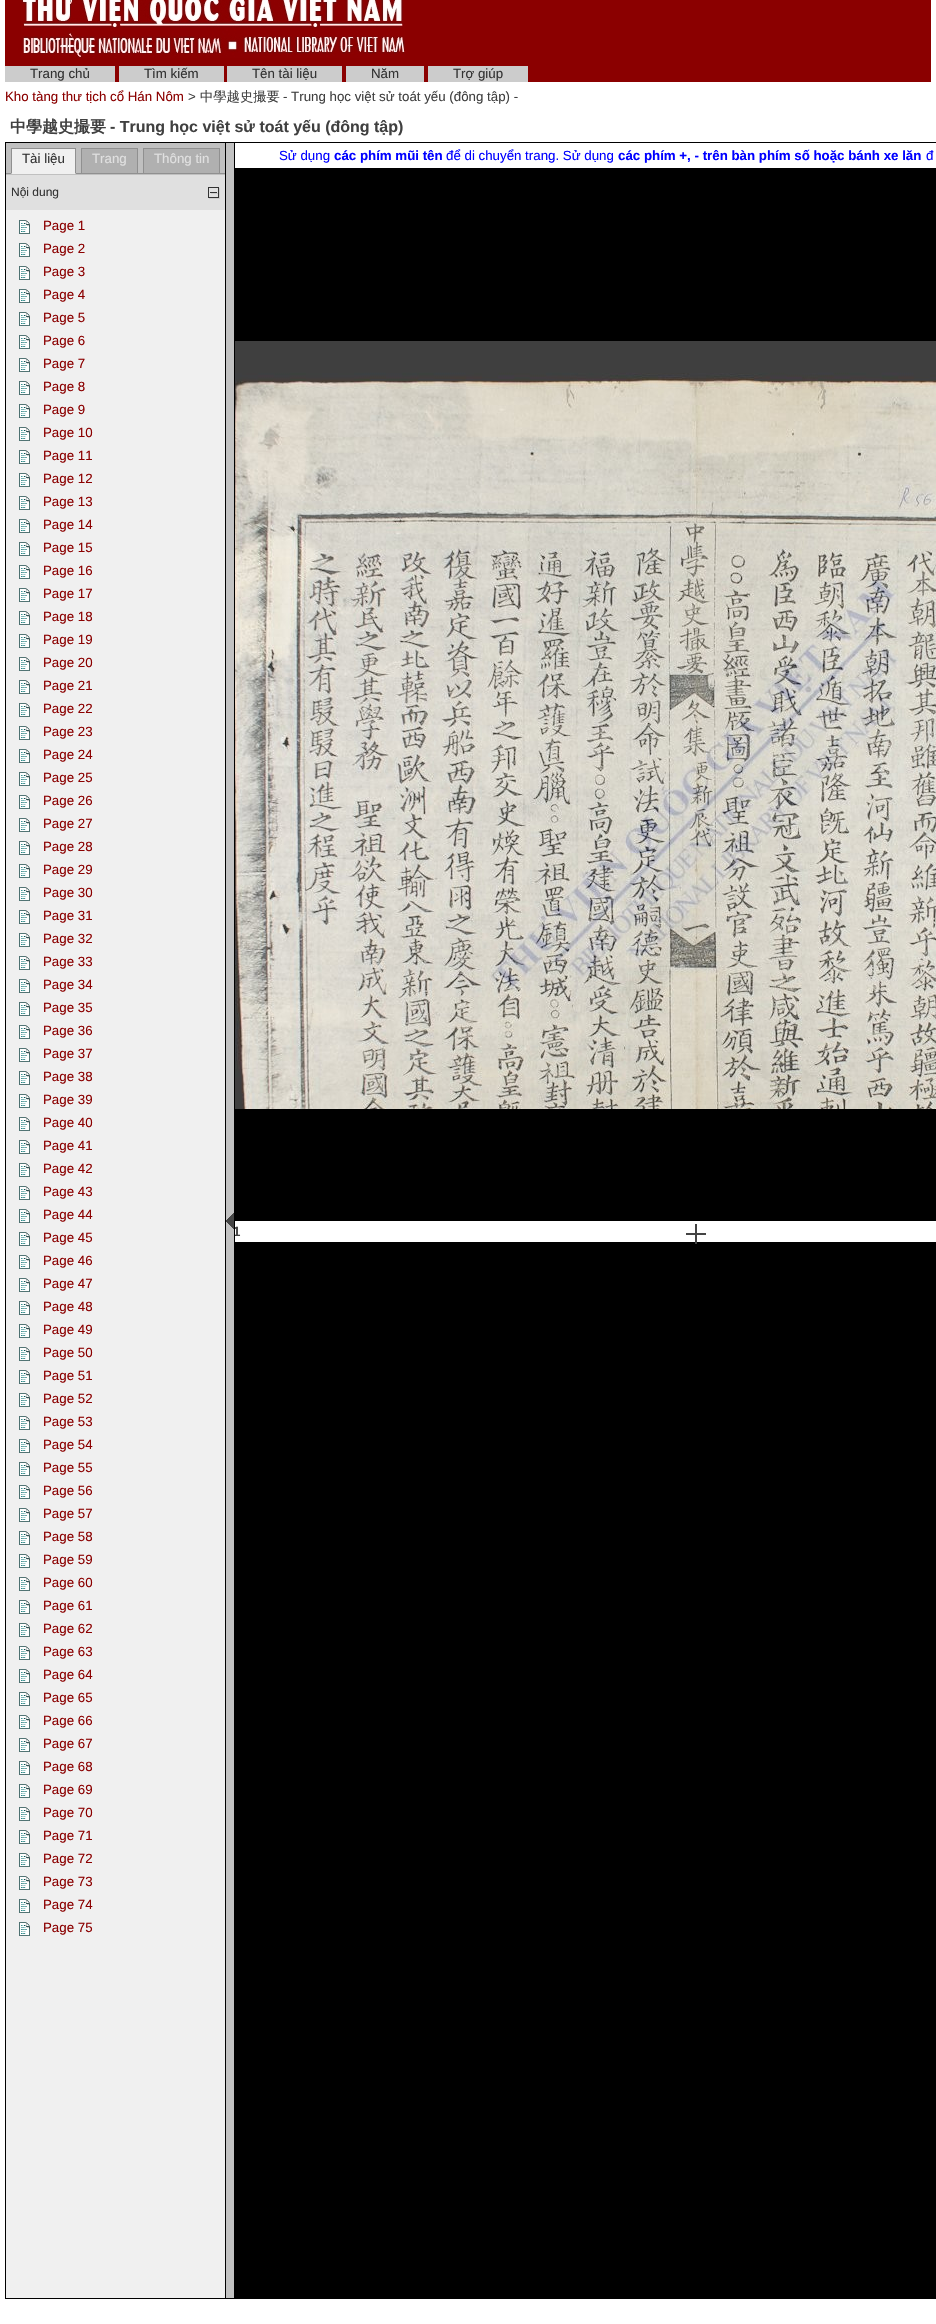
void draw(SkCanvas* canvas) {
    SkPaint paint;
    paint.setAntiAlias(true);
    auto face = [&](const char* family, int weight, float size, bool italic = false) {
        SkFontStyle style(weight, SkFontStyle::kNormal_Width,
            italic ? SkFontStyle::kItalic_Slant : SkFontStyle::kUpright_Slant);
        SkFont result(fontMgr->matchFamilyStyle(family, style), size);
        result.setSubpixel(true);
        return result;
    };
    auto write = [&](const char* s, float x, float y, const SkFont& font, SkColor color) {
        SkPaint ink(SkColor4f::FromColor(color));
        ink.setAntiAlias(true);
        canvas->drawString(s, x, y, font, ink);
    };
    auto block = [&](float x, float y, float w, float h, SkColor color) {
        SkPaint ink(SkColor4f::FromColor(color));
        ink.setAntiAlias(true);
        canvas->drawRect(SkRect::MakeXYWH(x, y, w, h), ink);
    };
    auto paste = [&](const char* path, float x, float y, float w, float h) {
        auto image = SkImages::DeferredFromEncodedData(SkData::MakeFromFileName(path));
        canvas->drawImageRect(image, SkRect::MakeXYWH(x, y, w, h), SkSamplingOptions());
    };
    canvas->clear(SK_ColorWHITE);
    block(5, 0, 926, 82, SkColorSetRGB(139, 0, 0));
    paste("pic1.png", 21, 0, 384, 58);
    block(5, 66, 110, 16, SkColorSetRGB(204, 204, 204));
    auto kFont1 = face("Liberation Sans", 400, 13.3f);
    write("Trang chủ", 30, 78, kFont1, SkColorSetRGB(51, 51, 51));
    block(119, 66, 105, 16, SkColorSetRGB(204, 204, 204));
    write("Tìm kiếm", 144, 78, kFont1, SkColorSetRGB(51, 51, 51));
    block(227, 66, 115, 16, SkColorSetRGB(204, 204, 204));
    write("Tên tài liệu", 252, 78, kFont1, SkColorSetRGB(51, 51, 51));
    block(346, 66, 78, 16, SkColorSetRGB(204, 204, 204));
    write("Năm", 371, 78, kFont1, SkColorSetRGB(51, 51, 51));
    block(428, 66, 100, 16, SkColorSetRGB(204, 204, 204));
    write("Trợ giúp", 453, 78, kFont1, SkColorSetRGB(51, 51, 51));
    write("Kho tàng thư tịch cổ Hán Nôm", 5, 101, kFont1, SkColorSetRGB(139, 0, 0));
    write(">", 188, 101, kFont1, SkColorSetRGB(64, 64, 64));
    auto kFont2 = face("WenQuanYi Zen Hei", 500, 13.3f);
    write("中學越史撮要", 200, 101, kFont2, SkColorSetRGB(64, 64, 64));
    write("- Trung học việt sử toát yếu (đông tập) -", 283, 101, kFont1, SkColorSetRGB(64, 64, 64));
    auto kFont3 = face("WenQuanYi Zen Hei", 700, 16);
    write("中學越史撮要", 10, 132, kFont3, SkColorSetRGB(64, 64, 64));
    auto kFont4 = face("Liberation Sans", 700, 16);
    write("- Trung học việt sử toát yếu (đông tập)", 110, 132, kFont4, SkColorSetRGB(64, 64, 64));
    paint.setStyle(SkPaint::kStroke_Style);
    paint.setStrokeWidth(1);
    paint.setColor(SK_ColorBLACK);
    canvas->drawRect(SkRect::MakeXYWH(5.5f, 142.5f, 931, 2156), paint);
    block(6, 143, 5, 31, SkColorSetRGB(192, 192, 192));
    block(6, 173, 5, 1, SkColorSetRGB(144, 144, 144));
    block(11, 143, 65, 5, SkColorSetRGB(192, 192, 192));
    block(11, 149, 65, 25, SkColorSetRGB(240, 240, 240));
    block(11, 148, 65, 1, SkColorSetRGB(144, 144, 144));
    paint.setStyle(SkPaint::kFill_Style);
    paint.setColor(SkColorSetRGB(144, 144, 144));
    canvas->drawPath(SkPathBuilder().moveTo(76, 148).lineTo(76, 174).lineTo(75, 173).lineTo(75, 149).close().detach(), paint);
    canvas->drawPath(SkPathBuilder().moveTo(11, 174).lineTo(11, 148).lineTo(12, 149).lineTo(12, 173).close().detach(), paint);
    write("Tài liệu", 22, 163, kFont1, SkColorSetRGB(51, 51, 51));
    block(76, 143, 5, 31, SkColorSetRGB(192, 192, 192));
    block(76, 173, 5, 1, SkColorSetRGB(144, 144, 144));
    block(81, 143, 57, 5, SkColorSetRGB(192, 192, 192));
    paint.setColor(SkColorSetRGB(176, 176, 176));
    canvas->drawRect(SkRect::MakeXYWH(81.5f, 148.5f, 56, 25), paint);
    paint.setStyle(SkPaint::kStroke_Style);
    paint.setColor(SkColorSetRGB(144, 144, 144));
    canvas->drawRect(SkRect::MakeXYWH(81.5f, 148.5f, 56, 25), paint);
    write("Trang", 92, 163, kFont1, SkColorSetRGB(224, 224, 224));
    block(138, 143, 5, 31, SkColorSetRGB(192, 192, 192));
    block(138, 173, 5, 1, SkColorSetRGB(144, 144, 144));
    block(143, 143, 77, 5, SkColorSetRGB(192, 192, 192));
    paint.setStyle(SkPaint::kFill_Style);
    paint.setColor(SkColorSetRGB(176, 176, 176));
    canvas->drawRect(SkRect::MakeXYWH(143.5f, 148.5f, 76, 25), paint);
    paint.setStyle(SkPaint::kStroke_Style);
    paint.setColor(SkColorSetRGB(144, 144, 144));
    canvas->drawRect(SkRect::MakeXYWH(143.5f, 148.5f, 76, 25), paint);
    write("Thông tin", 154, 163, kFont1, SkColorSetRGB(224, 224, 224));
    block(220, 143, 5, 31, SkColorSetRGB(192, 192, 192));
    block(220, 173, 5, 1, SkColorSetRGB(144, 144, 144));
    block(6, 210, 219, 2088, SkColorSetRGB(240, 240, 240));
    block(6, 175, 219, 35, SkColorSetRGB(224, 224, 224));
    block(6, 174, 219, 1, SkColorSetRGB(192, 192, 192));
    auto kFont5 = face("Liberation Sans", 400, 12);
    write("Nội dung", 11, 196, kFont5, SkColorSetRGB(51, 51, 51));
    paste("pic2.png", 208, 187, 12, 12);
    paste("pic3.png", 19, 220, 11, 14);
    write("Page 1", 43, 230, kFont1, SkColorSetRGB(139, 0, 0));
    paste("pic3.png", 19, 243, 11, 14);
    write("Page 2", 43, 253, kFont1, SkColorSetRGB(139, 0, 0));
    paste("pic3.png", 19, 266, 11, 14);
    write("Page 3", 43, 276, kFont1, SkColorSetRGB(139, 0, 0));
    paste("pic3.png", 19, 289, 11, 14);
    write("Page 4", 43, 299, kFont1, SkColorSetRGB(139, 0, 0));
    paste("pic3.png", 19, 312, 11, 14);
    write("Page 5", 43, 322, kFont1, SkColorSetRGB(139, 0, 0));
    paste("pic3.png", 19, 335, 11, 14);
    write("Page 6", 43, 345, kFont1, SkColorSetRGB(139, 0, 0));
    paste("pic3.png", 19, 358, 11, 14);
    write("Page 7", 43, 368, kFont1, SkColorSetRGB(139, 0, 0));
    paste("pic3.png", 19, 381, 11, 14);
    write("Page 8", 43, 391, kFont1, SkColorSetRGB(139, 0, 0));
    paste("pic3.png", 19, 404, 11, 14);
    write("Page 9", 43, 414, kFont1, SkColorSetRGB(139, 0, 0));
    paste("pic3.png", 19, 427, 11, 14);
    write("Page 10", 43, 437, kFont1, SkColorSetRGB(139, 0, 0));
    paste("pic3.png", 19, 450, 11, 14);
    write("Page 11", 43, 460, kFont1, SkColorSetRGB(139, 0, 0));
    paste("pic3.png", 19, 473, 11, 14);
    write("Page 12", 43, 483, kFont1, SkColorSetRGB(139, 0, 0));
    paste("pic3.png", 19, 496, 11, 14);
    write("Page 13", 43, 506, kFont1, SkColorSetRGB(139, 0, 0));
    paste("pic3.png", 19, 519, 11, 14);
    write("Page 14", 43, 529, kFont1, SkColorSetRGB(139, 0, 0));
    paste("pic3.png", 19, 542, 11, 14);
    write("Page 15", 43, 552, kFont1, SkColorSetRGB(139, 0, 0));
    paste("pic3.png", 19, 565, 11, 14);
    write("Page 16", 43, 575, kFont1, SkColorSetRGB(139, 0, 0));
    paste("pic3.png", 19, 588, 11, 14);
    write("Page 17", 43, 598, kFont1, SkColorSetRGB(139, 0, 0));
    paste("pic3.png", 19, 611, 11, 14);
    write("Page 18", 43, 621, kFont1, SkColorSetRGB(139, 0, 0));
    paste("pic3.png", 19, 634, 11, 14);
    write("Page 19", 43, 644, kFont1, SkColorSetRGB(139, 0, 0));
    paste("pic3.png", 19, 657, 11, 14);
    write("Page 20", 43, 667, kFont1, SkColorSetRGB(139, 0, 0));
    paste("pic3.png", 19, 680, 11, 14);
    write("Page 21", 43, 690, kFont1, SkColorSetRGB(139, 0, 0));
    paste("pic3.png", 19, 703, 11, 14);
    write("Page 22", 43, 713, kFont1, SkColorSetRGB(139, 0, 0));
    paste("pic3.png", 19, 726, 11, 14);
    write("Page 23", 43, 736, kFont1, SkColorSetRGB(139, 0, 0));
    paste("pic3.png", 19, 749, 11, 14);
    write("Page 24", 43, 759, kFont1, SkColorSetRGB(139, 0, 0));
    paste("pic3.png", 19, 772, 11, 14);
    write("Page 25", 43, 782, kFont1, SkColorSetRGB(139, 0, 0));
    paste("pic3.png", 19, 795, 11, 14);
    write("Page 26", 43, 805, kFont1, SkColorSetRGB(139, 0, 0));
    paste("pic3.png", 19, 818, 11, 14);
    write("Page 27", 43, 828, kFont1, SkColorSetRGB(139, 0, 0));
    paste("pic3.png", 19, 841, 11, 14);
    write("Page 28", 43, 851, kFont1, SkColorSetRGB(139, 0, 0));
    paste("pic3.png", 19, 864, 11, 14);
    write("Page 29", 43, 874, kFont1, SkColorSetRGB(139, 0, 0));
    paste("pic3.png", 19, 887, 11, 14);
    write("Page 30", 43, 897, kFont1, SkColorSetRGB(139, 0, 0));
    paste("pic3.png", 19, 910, 11, 14);
    write("Page 31", 43, 920, kFont1, SkColorSetRGB(139, 0, 0));
    paste("pic3.png", 19, 933, 11, 14);
    write("Page 32", 43, 943, kFont1, SkColorSetRGB(139, 0, 0));
    paste("pic3.png", 19, 956, 11, 14);
    write("Page 33", 43, 966, kFont1, SkColorSetRGB(139, 0, 0));
    paste("pic3.png", 19, 979, 11, 14);
    write("Page 34", 43, 989, kFont1, SkColorSetRGB(139, 0, 0));
    paste("pic3.png", 19, 1002, 11, 14);
    write("Page 35", 43, 1012, kFont1, SkColorSetRGB(139, 0, 0));
    paste("pic3.png", 19, 1025, 11, 14);
    write("Page 36", 43, 1035, kFont1, SkColorSetRGB(139, 0, 0));
    paste("pic3.png", 19, 1048, 11, 14);
    write("Page 37", 43, 1058, kFont1, SkColorSetRGB(139, 0, 0));
    paste("pic3.png", 19, 1071, 11, 14);
    write("Page 38", 43, 1081, kFont1, SkColorSetRGB(139, 0, 0));
    paste("pic3.png", 19, 1094, 11, 14);
    write("Page 39", 43, 1104, kFont1, SkColorSetRGB(139, 0, 0));
    paste("pic3.png", 19, 1117, 11, 14);
    write("Page 40", 43, 1127, kFont1, SkColorSetRGB(139, 0, 0));
    paste("pic3.png", 19, 1140, 11, 14);
    write("Page 41", 43, 1150, kFont1, SkColorSetRGB(139, 0, 0));
    paste("pic3.png", 19, 1163, 11, 14);
    write("Page 42", 43, 1173, kFont1, SkColorSetRGB(139, 0, 0));
    paste("pic3.png", 19, 1186, 11, 14);
    write("Page 43", 43, 1196, kFont1, SkColorSetRGB(139, 0, 0));
    paste("pic3.png", 19, 1209, 11, 14);
    write("Page 44", 43, 1219, kFont1, SkColorSetRGB(139, 0, 0));
    paste("pic3.png", 19, 1232, 11, 14);
    write("Page 45", 43, 1242, kFont1, SkColorSetRGB(139, 0, 0));
    paste("pic3.png", 19, 1255, 11, 14);
    write("Page 46", 43, 1265, kFont1, SkColorSetRGB(139, 0, 0));
    paste("pic3.png", 19, 1278, 11, 14);
    write("Page 47", 43, 1288, kFont1, SkColorSetRGB(139, 0, 0));
    paste("pic3.png", 19, 1301, 11, 14);
    write("Page 48", 43, 1311, kFont1, SkColorSetRGB(139, 0, 0));
    paste("pic3.png", 19, 1324, 11, 14);
    write("Page 49", 43, 1334, kFont1, SkColorSetRGB(139, 0, 0));
    paste("pic3.png", 19, 1347, 11, 14);
    write("Page 50", 43, 1357, kFont1, SkColorSetRGB(139, 0, 0));
    paste("pic3.png", 19, 1370, 11, 14);
    write("Page 51", 43, 1380, kFont1, SkColorSetRGB(139, 0, 0));
    paste("pic3.png", 19, 1393, 11, 14);
    write("Page 52", 43, 1403, kFont1, SkColorSetRGB(139, 0, 0));
    paste("pic3.png", 19, 1416, 11, 14);
    write("Page 53", 43, 1426, kFont1, SkColorSetRGB(139, 0, 0));
    paste("pic3.png", 19, 1439, 11, 14);
    write("Page 54", 43, 1449, kFont1, SkColorSetRGB(139, 0, 0));
    paste("pic3.png", 19, 1462, 11, 14);
    write("Page 55", 43, 1472, kFont1, SkColorSetRGB(139, 0, 0));
    paste("pic3.png", 19, 1485, 11, 14);
    write("Page 56", 43, 1495, kFont1, SkColorSetRGB(139, 0, 0));
    paste("pic3.png", 19, 1508, 11, 14);
    write("Page 57", 43, 1518, kFont1, SkColorSetRGB(139, 0, 0));
    paste("pic3.png", 19, 1531, 11, 14);
    write("Page 58", 43, 1541, kFont1, SkColorSetRGB(139, 0, 0));
    paste("pic3.png", 19, 1554, 11, 14);
    write("Page 59", 43, 1564, kFont1, SkColorSetRGB(139, 0, 0));
    paste("pic3.png", 19, 1577, 11, 14);
    write("Page 60", 43, 1587, kFont1, SkColorSetRGB(139, 0, 0));
    paste("pic3.png", 19, 1600, 11, 14);
    write("Page 61", 43, 1610, kFont1, SkColorSetRGB(139, 0, 0));
    paste("pic3.png", 19, 1623, 11, 14);
    write("Page 62", 43, 1633, kFont1, SkColorSetRGB(139, 0, 0));
    paste("pic3.png", 19, 1646, 11, 14);
    write("Page 63", 43, 1656, kFont1, SkColorSetRGB(139, 0, 0));
    paste("pic3.png", 19, 1669, 11, 14);
    write("Page 64", 43, 1679, kFont1, SkColorSetRGB(139, 0, 0));
    paste("pic3.png", 19, 1692, 11, 14);
    write("Page 65", 43, 1702, kFont1, SkColorSetRGB(139, 0, 0));
    paste("pic3.png", 19, 1715, 11, 14);
    write("Page 66", 43, 1725, kFont1, SkColorSetRGB(139, 0, 0));
    paste("pic3.png", 19, 1738, 11, 14);
    write("Page 67", 43, 1748, kFont1, SkColorSetRGB(139, 0, 0));
    paste("pic3.png", 19, 1761, 11, 14);
    write("Page 68", 43, 1771, kFont1, SkColorSetRGB(139, 0, 0));
    paste("pic3.png", 19, 1784, 11, 14);
    write("Page 69", 43, 1794, kFont1, SkColorSetRGB(139, 0, 0));
    paste("pic3.png", 19, 1807, 11, 14);
    write("Page 70", 43, 1817, kFont1, SkColorSetRGB(139, 0, 0));
    paste("pic3.png", 19, 1830, 11, 14);
    write("Page 71", 43, 1840, kFont1, SkColorSetRGB(139, 0, 0));
    paste("pic3.png", 19, 1853, 11, 14);
    write("Page 72", 43, 1863, kFont1, SkColorSetRGB(139, 0, 0));
    paste("pic3.png", 19, 1876, 11, 14);
    write("Page 73", 43, 1886, kFont1, SkColorSetRGB(139, 0, 0));
    paste("pic3.png", 19, 1899, 11, 14);
    write("Page 74", 43, 1909, kFont1, SkColorSetRGB(139, 0, 0));
    paste("pic3.png", 19, 1922, 11, 14);
    write("Page 75", 43, 1932, kFont1, SkColorSetRGB(139, 0, 0));
    block(226, 143, 8, 2155, SkColorSetRGB(194, 194, 194));
    block(234, 143, 1, 2155, SK_ColorBLACK);
    block(225, 143, 1, 2155, SK_ColorBLACK);
    paste("pic4.png", 226, 1213, 8, 16);
    block(235, 168, 701, 2130, SK_ColorBLACK);
    write("Sử dụng", 279, 160, kFont1, SkColorSetRGB(0, 0, 255));
    auto kFont6 = face("Liberation Sans", 700, 13.3f);
    write("các phím mũi tên", 334, 160, kFont6, SkColorSetRGB(0, 0, 255));
    write("để di chuyển trang. Sử dụng", 446, 160, kFont1, SkColorSetRGB(0, 0, 255));
    write("các phím +, - trên bàn phím số hoặc bánh xe lăn", 618, 160, kFont6, SkColorSetRGB(0, 0, 255));
    write("đ", 926, 160, kFont1, SkColorSetRGB(0, 0, 255));
    paste("pic5.png", 235, 341, 215, 256);
    paste("pic6.png", 450, 341, 256, 256);
    paste("pic7.png", 706, 341, 230, 256);
    paste("pic8.png", 235, 597, 215, 256);
    paste("pic9.png", 450, 597, 256, 256);
    paste("pic10.png", 706, 597, 230, 256);
    paste("pic11.png", 235, 853, 215, 256);
    paste("pic12.png", 450, 853, 256, 256);
    paste("pic13.png", 706, 853, 230, 256);
    block(235, 1221, 701, 21, SK_ColorWHITE);
    canvas->save();
    canvas->clipRect(SkRect::MakeXYWH(235, 169, 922, 2129));
    write("1", 233, 1236, kFont6, SkColorSetRGB(64, 64, 64));
    canvas->restore();
    block(686, 1233, 20, 2, SkColorSetRGB(68, 68, 68));
    block(695, 1224, 2, 20, SkColorSetRGB(68, 68, 68));
}
